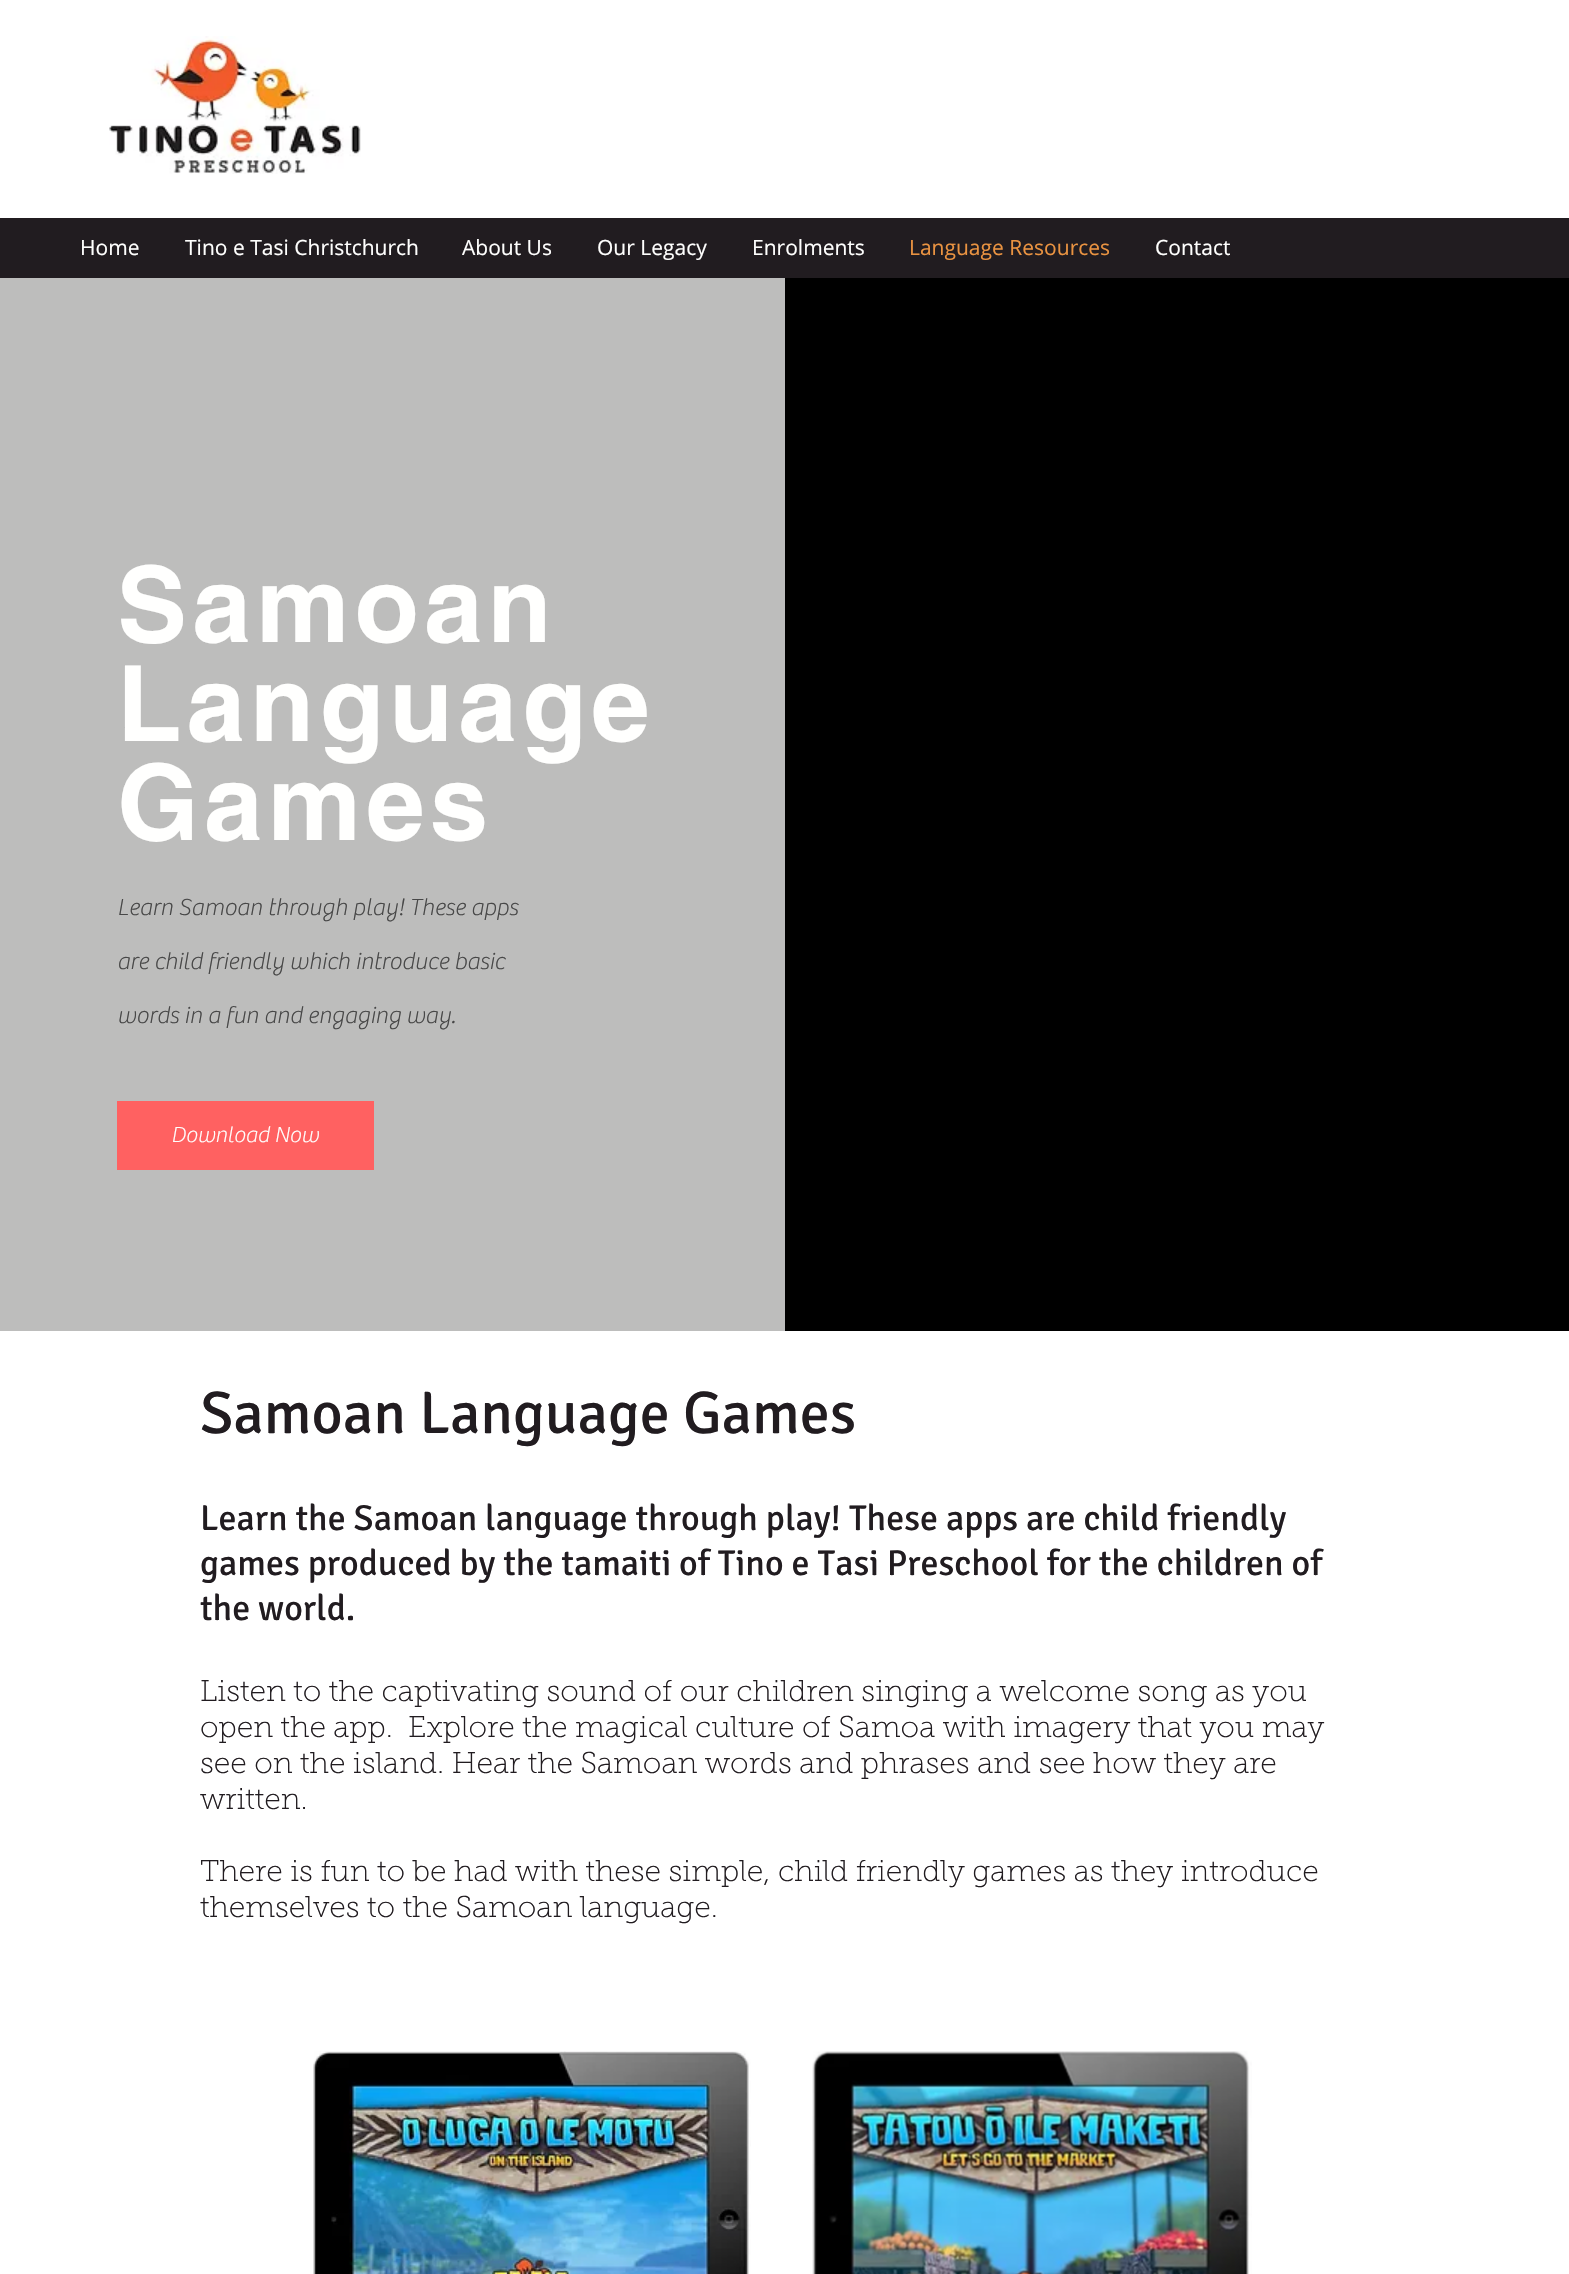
void draw(SkCanvas* canvas) {
    SkPaint paint;
    paint.setAntiAlias(true);
    auto face = [&](const char* family, int weight, float size, bool italic = false) {
        SkFontStyle style(weight, SkFontStyle::kNormal_Width,
            italic ? SkFontStyle::kItalic_Slant : SkFontStyle::kUpright_Slant);
        SkFont result(fontMgr->matchFamilyStyle(family, style), size);
        result.setSubpixel(true);
        return result;
    };
    auto write = [&](const char* s, float x, float y, const SkFont& font, SkColor color) {
        SkPaint ink(SkColor4f::FromColor(color));
        ink.setAntiAlias(true);
        canvas->drawString(s, x, y, font, ink);
    };
    auto writeSpaced = [&](const char* s, float x, float y, const SkFont& font, const SkPaint& ink, float letter, float word) {
        std::vector<SkGlyphID> glyphs(font.countText(s, strlen(s), SkTextEncoding::kUTF8));
        std::vector<float> xs(glyphs.size());
        font.textToGlyphs(s, strlen(s), SkTextEncoding::kUTF8, glyphs);
        font.getXPos(glyphs, xs, x);
        float extra = 0;
        for (size_t i = 0; i < glyphs.size(); i++) {
            xs[i] += extra;
            extra += letter + word * (glyphs[i] == font.unicharToGlyph(' '));
        }
        canvas->drawTextBlob(SkTextBlob::MakeFromPosHGlyphs(glyphs, xs, y, font), 0, 0, ink);
    };
    auto block = [&](float x, float y, float w, float h, SkColor color) {
        SkPaint ink(SkColor4f::FromColor(color));
        ink.setAntiAlias(true);
        canvas->drawRect(SkRect::MakeXYWH(x, y, w, h), ink);
    };
    auto paste = [&](const char* path, float x, float y, float w, float h) {
        auto image = SkImages::DeferredFromEncodedData(SkData::MakeFromFileName(path));
        canvas->drawImageRect(image, SkRect::MakeXYWH(x, y, w, h), SkSamplingOptions());
    };
    canvas->clear(SK_ColorWHITE);
    paste("pic1.png", 109, 36, 252, 138);
    block(0, 218, 1569, 60, SkColorSetRGB(33, 28, 32));
    auto kFont1 = face("Open Sans", 400, 21);
    write("Home", 80, 255, kFont1, SkColorSetRGB(255, 255, 254));
    write("Tino e Tasi Christchurch", 185, 255, kFont1, SkColorSetRGB(255, 255, 254));
    write("About Us", 462, 255, kFont1, SkColorSetRGB(255, 255, 254));
    write("Our Legacy", 597, 255, kFont1, SkColorSetRGB(255, 255, 254));
    write("Enrolments", 752, 255, kFont1, SkColorSetRGB(255, 255, 254));
    write("Language Resources", 909, 255, kFont1, SkColorSetRGB(234, 147, 65));
    write("Contact", 1155, 255, kFont1, SkColorSetRGB(255, 255, 254));
    block(0, 278, 785, 1053, SkColorSetRGB(189, 189, 188));
    auto kFont2 = face("helvetica", 700, 105);
    paint.setColor(SkColorSetRGB(255, 255, 254));
    writeSpaced("Samoan", 117, 642, kFont2, paint, 5.25f, 0);
    writeSpaced("Language", 117, 741, kFont2, paint, 5.25f, 0);
    writeSpaced("Games", 117, 840, kFont2, paint, 5.25f, 0);
    auto kFont3 = face("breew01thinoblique", 100, 24);
    write("Learn Samoan through play! These apps", 117, 915, kFont3, SkColorSetRGB(71, 71, 71));
    write("are child friendly which introduce basic", 117, 969, kFont3, SkColorSetRGB(71, 71, 71));
    write("words in a fun and engaging way.", 117, 1023, kFont3, SkColorSetRGB(71, 71, 71));
    block(117, 1101, 257, 69, SkColorSetRGB(255, 97, 97));
    auto kFont4 = face("breew01thinoblique", 100, 22.5f);
    write("Download Now", 171, 1142, kFont4, SkColorSetRGB(255, 255, 254));
    block(785, 278, 784, 1053, SK_ColorBLACK);
    auto kFont5 = face("Signika", 400, 60);
    write("Samoan Language Games", 200, 1433, kFont5, SkColorSetRGB(33, 28, 32));
    auto kFont6 = face("Signika", 400, 36);
    write("Learn the Samoan language through play! These apps are child friendly", 200, 1530, kFont6, SkColorSetRGB(33, 28, 32));
    write("games produced by the tamaiti of Tino e Tasi Preschool for the children of", 200, 1575, kFont6, SkColorSetRGB(33, 28, 32));
    write("the world.", 200, 1620, kFont6, SkColorSetRGB(33, 28, 32));
    auto kFont7 = face("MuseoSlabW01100", 100, 30);
    write("Listen to the captivating sound of our children singing a welcome song as you", 200, 1701, kFont7, SkColorSetRGB(33, 28, 32));
    write("open the app.  Explore the magical culture of Samoa with imagery that you may", 200, 1737, kFont7, SkColorSetRGB(33, 28, 32));
    write("see on the island. Hear the Samoan words and phrases and see how they are", 200, 1773, kFont7, SkColorSetRGB(33, 28, 32));
    write("written.", 200, 1809, kFont7, SkColorSetRGB(33, 28, 32));
    write("There is fun to be had with these simple, child friendly games as they introduce", 200, 1881, kFont7, SkColorSetRGB(33, 28, 32));
    write("themselves to the Samoan language.", 200, 1917, kFont7, SkColorSetRGB(33, 28, 32));
    paste("pic2.png", 313, 2051, 438, 223);
    paste("pic3.png", 812, 2051, 440, 223);
}
